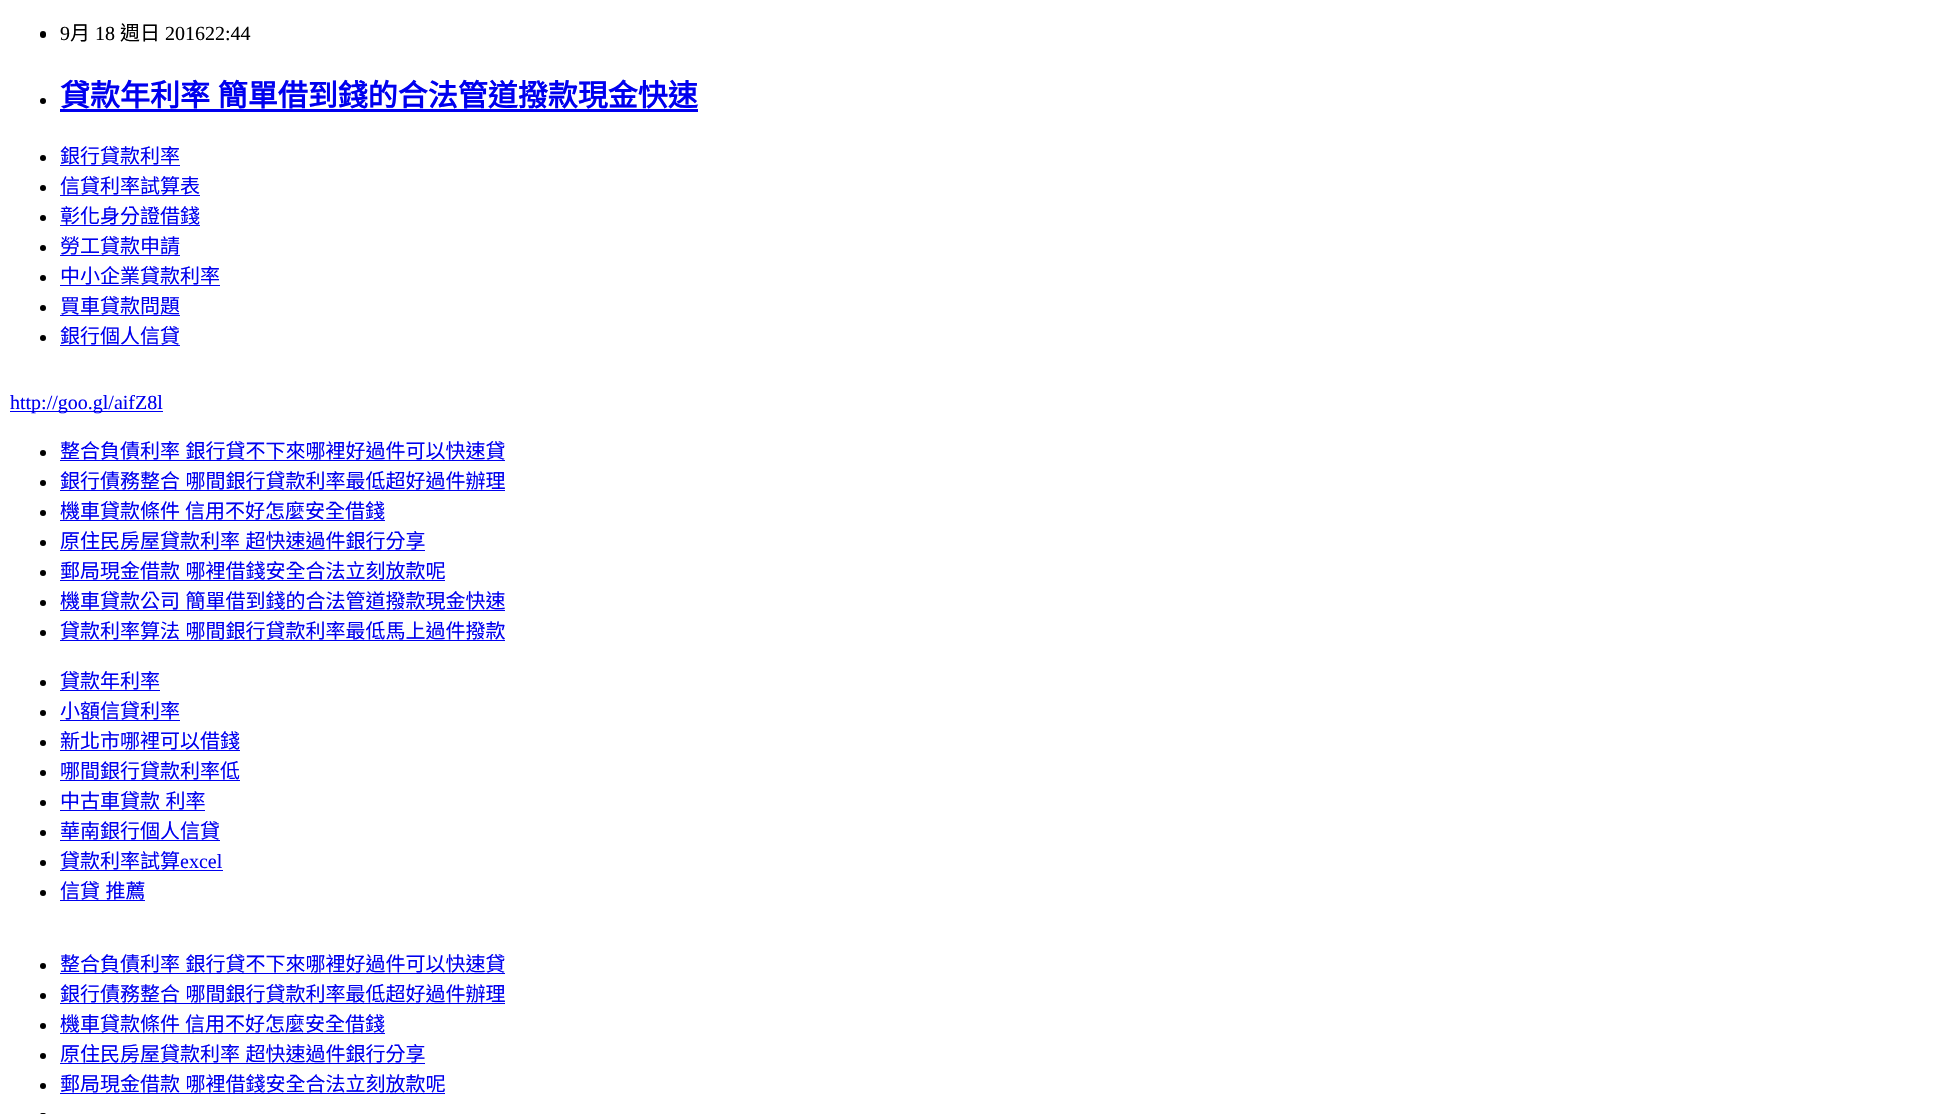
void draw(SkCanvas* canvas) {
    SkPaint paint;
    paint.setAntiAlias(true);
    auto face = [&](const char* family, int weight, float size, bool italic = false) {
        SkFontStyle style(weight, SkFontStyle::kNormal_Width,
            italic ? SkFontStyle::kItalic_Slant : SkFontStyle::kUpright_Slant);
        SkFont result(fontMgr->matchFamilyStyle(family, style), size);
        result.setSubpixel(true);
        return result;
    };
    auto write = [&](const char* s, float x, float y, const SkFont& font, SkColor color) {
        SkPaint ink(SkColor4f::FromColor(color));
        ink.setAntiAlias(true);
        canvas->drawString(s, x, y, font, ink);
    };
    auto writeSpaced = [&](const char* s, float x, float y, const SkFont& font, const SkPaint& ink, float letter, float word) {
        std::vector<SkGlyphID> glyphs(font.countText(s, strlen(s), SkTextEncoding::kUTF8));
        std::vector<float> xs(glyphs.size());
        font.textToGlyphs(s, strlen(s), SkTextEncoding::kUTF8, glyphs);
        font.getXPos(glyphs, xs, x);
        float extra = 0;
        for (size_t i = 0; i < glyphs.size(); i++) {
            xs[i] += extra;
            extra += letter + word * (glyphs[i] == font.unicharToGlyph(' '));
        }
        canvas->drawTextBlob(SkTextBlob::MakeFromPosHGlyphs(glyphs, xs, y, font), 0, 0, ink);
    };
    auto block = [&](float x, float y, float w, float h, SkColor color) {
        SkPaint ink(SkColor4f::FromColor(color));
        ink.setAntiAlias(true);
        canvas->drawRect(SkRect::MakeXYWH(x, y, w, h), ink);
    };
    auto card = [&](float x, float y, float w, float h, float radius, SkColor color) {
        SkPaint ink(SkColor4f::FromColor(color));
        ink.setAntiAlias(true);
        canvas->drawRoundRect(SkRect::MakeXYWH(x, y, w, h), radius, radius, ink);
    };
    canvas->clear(SK_ColorWHITE);
    card(40, 31, 6, 7, 3, SK_ColorBLACK);
    auto kFont1 = face("Liberation Serif", 400, 20);
    write("9", 60, 40, kFont1, SK_ColorBLACK);
    auto kFont2 = face("Noto Sans CJK TC", 400, 20);
    write("月", 70, 40, kFont2, SK_ColorBLACK);
    write("18", 95, 40, kFont1, SK_ColorBLACK);
    write("週日", 120, 40, kFont2, SK_ColorBLACK);
    write("201622:44", 165, 40, kFont1, SK_ColorBLACK);
    paint.setColor(SK_ColorBLACK);
    canvas->drawCircle(43, 101, 3, paint);
    auto kFont3 = face("Noto Sans CJK TC", 700, 30);
    paint.setColor(SkColorSetRGB(0, 0, 238));
    writeSpaced("貸款年利率 簡單借到錢的合法管道撥款現金快速", 60, 106, kFont3, paint, 0, 1);
    block(60, 109, 638, 3, SkColorSetRGB(0, 0, 238));
    paint.setColor(SK_ColorBLACK);
    canvas->drawCircle(43, 158, 3, paint);
    write("銀行貸款利率", 60, 163, kFont2, SkColorSetRGB(0, 0, 238));
    block(60, 165, 120, 1, SkColorSetRGB(0, 0, 238));
    canvas->drawCircle(43, 188, 3, paint);
    write("信貸利率試算表", 60, 193, kFont2, SkColorSetRGB(0, 0, 238));
    block(60, 195, 140, 1, SkColorSetRGB(0, 0, 238));
    canvas->drawCircle(43, 218, 3, paint);
    write("彰化身分證借錢", 60, 223, kFont2, SkColorSetRGB(0, 0, 238));
    block(60, 225, 140, 1, SkColorSetRGB(0, 0, 238));
    canvas->drawCircle(43, 248, 3, paint);
    write("勞工貸款申請", 60, 253, kFont2, SkColorSetRGB(0, 0, 238));
    block(60, 255, 120, 1, SkColorSetRGB(0, 0, 238));
    canvas->drawCircle(43, 278, 3, paint);
    write("中小企業貸款利率", 60, 283, kFont2, SkColorSetRGB(0, 0, 238));
    block(60, 285, 160, 1, SkColorSetRGB(0, 0, 238));
    canvas->drawCircle(43, 308, 3, paint);
    write("買車貸款問題", 60, 313, kFont2, SkColorSetRGB(0, 0, 238));
    block(60, 315, 120, 1, SkColorSetRGB(0, 0, 238));
    canvas->drawCircle(43, 338, 3, paint);
    write("銀行個人信貸", 60, 343, kFont2, SkColorSetRGB(0, 0, 238));
    block(60, 345, 120, 1, SkColorSetRGB(0, 0, 238));
    block(10, 411, 153, 1, SkColorSetRGB(0, 0, 238));
    write("http://goo.gl/aifZ8l", 10, 409, kFont1, SkColorSetRGB(0, 0, 238));
    canvas->drawCircle(43, 453, 3, paint);
    paint.setColor(SkColorSetRGB(0, 0, 238));
    writeSpaced("整合負債利率 銀行貸不下來哪裡好過件可以快速貸", 60, 458, kFont2, paint, 0, 1);
    block(60, 460, 445, 1, SkColorSetRGB(0, 0, 238));
    paint.setColor(SK_ColorBLACK);
    canvas->drawCircle(43, 483, 3, paint);
    paint.setColor(SkColorSetRGB(0, 0, 238));
    writeSpaced("銀行債務整合 哪間銀行貸款利率最低超好過件辦理", 60, 488, kFont2, paint, 0, 1);
    block(60, 490, 445, 1, SkColorSetRGB(0, 0, 238));
    paint.setColor(SK_ColorBLACK);
    canvas->drawCircle(43, 513, 3, paint);
    write("機車貸款條件", 60, 518, kFont2, SkColorSetRGB(0, 0, 238));
    block(60, 520, 325, 1, SkColorSetRGB(0, 0, 238));
    write("信用不好怎麼安全借錢", 185, 518, kFont2, SkColorSetRGB(0, 0, 238));
    canvas->drawCircle(43, 543, 3, paint);
    paint.setColor(SkColorSetRGB(0, 0, 238));
    writeSpaced("原住民房屋貸款利率 超快速過件銀行分享", 60, 548, kFont2, paint, 0, 1);
    block(60, 550, 365, 1, SkColorSetRGB(0, 0, 238));
    paint.setColor(SK_ColorBLACK);
    canvas->drawCircle(43, 573, 3, paint);
    paint.setColor(SkColorSetRGB(0, 0, 238));
    writeSpaced("郵局現金借款 哪裡借錢安全合法立刻放款呢", 60, 578, kFont2, paint, 0, 1);
    block(60, 580, 385, 1, SkColorSetRGB(0, 0, 238));
    paint.setColor(SK_ColorBLACK);
    canvas->drawCircle(43, 603, 3, paint);
    paint.setColor(SkColorSetRGB(0, 0, 238));
    writeSpaced("機車貸款公司 簡單借到錢的合法管道撥款現金快速", 60, 608, kFont2, paint, 0, 1);
    block(60, 610, 445, 1, SkColorSetRGB(0, 0, 238));
    paint.setColor(SK_ColorBLACK);
    canvas->drawCircle(43, 633, 3, paint);
    paint.setColor(SkColorSetRGB(0, 0, 238));
    writeSpaced("貸款利率算法 哪間銀行貸款利率最低馬上過件撥款", 60, 638, kFont2, paint, 0, 1);
    block(60, 640, 445, 1, SkColorSetRGB(0, 0, 238));
    paint.setColor(SK_ColorBLACK);
    canvas->drawCircle(43, 683, 3, paint);
    write("貸款年利率", 60, 688, kFont2, SkColorSetRGB(0, 0, 238));
    block(60, 690, 100, 1, SkColorSetRGB(0, 0, 238));
    canvas->drawCircle(43, 713, 3, paint);
    write("小額信貸利率", 60, 718, kFont2, SkColorSetRGB(0, 0, 238));
    block(60, 720, 120, 1, SkColorSetRGB(0, 0, 238));
    canvas->drawCircle(43, 743, 3, paint);
    write("新北市哪裡可以借錢", 60, 748, kFont2, SkColorSetRGB(0, 0, 238));
    block(60, 750, 180, 1, SkColorSetRGB(0, 0, 238));
    canvas->drawCircle(43, 773, 3, paint);
    write("哪間銀行貸款利率低", 60, 778, kFont2, SkColorSetRGB(0, 0, 238));
    block(60, 780, 180, 1, SkColorSetRGB(0, 0, 238));
    canvas->drawCircle(43, 803, 3, paint);
    paint.setColor(SkColorSetRGB(0, 0, 238));
    writeSpaced("中古車貸款 利率", 60, 808, kFont2, paint, 0, 1);
    block(60, 810, 145, 1, SkColorSetRGB(0, 0, 238));
    paint.setColor(SK_ColorBLACK);
    canvas->drawCircle(43, 833, 3, paint);
    write("華南銀行個人信貸", 60, 838, kFont2, SkColorSetRGB(0, 0, 238));
    block(60, 840, 160, 1, SkColorSetRGB(0, 0, 238));
    canvas->drawCircle(43, 863, 3, paint);
    write("貸款利率試算", 60, 868, kFont2, SkColorSetRGB(0, 0, 238));
    write("excel", 180, 868, kFont1, SkColorSetRGB(0, 0, 238));
    block(60, 870, 163, 1, SkColorSetRGB(0, 0, 238));
    canvas->drawCircle(43, 893, 3, paint);
    paint.setColor(SkColorSetRGB(0, 0, 238));
    writeSpaced("信貸 推薦", 60, 898, kFont2, paint, 0, 1);
    block(60, 900, 85, 1, SkColorSetRGB(0, 0, 238));
    paint.setColor(SK_ColorBLACK);
    canvas->drawCircle(43, 966, 3, paint);
    paint.setColor(SkColorSetRGB(0, 0, 238));
    writeSpaced("整合負債利率 銀行貸不下來哪裡好過件可以快速貸", 60, 971, kFont2, paint, 0, 1);
    block(60, 973, 445, 1, SkColorSetRGB(0, 0, 238));
    paint.setColor(SK_ColorBLACK);
    canvas->drawCircle(43, 996, 3, paint);
    paint.setColor(SkColorSetRGB(0, 0, 238));
    writeSpaced("銀行債務整合 哪間銀行貸款利率最低超好過件辦理", 60, 1001, kFont2, paint, 0, 1);
    block(60, 1003, 445, 1, SkColorSetRGB(0, 0, 238));
    paint.setColor(SK_ColorBLACK);
    canvas->drawCircle(43, 1026, 3, paint);
    write("機車貸款條件", 60, 1031, kFont2, SkColorSetRGB(0, 0, 238));
    block(60, 1033, 325, 1, SkColorSetRGB(0, 0, 238));
    write("信用不好怎麼安全借錢", 185, 1031, kFont2, SkColorSetRGB(0, 0, 238));
    canvas->drawCircle(43, 1056, 3, paint);
    paint.setColor(SkColorSetRGB(0, 0, 238));
    writeSpaced("原住民房屋貸款利率 超快速過件銀行分享", 60, 1061, kFont2, paint, 0, 1);
    block(60, 1063, 365, 1, SkColorSetRGB(0, 0, 238));
    paint.setColor(SK_ColorBLACK);
    canvas->drawCircle(43, 1086, 3, paint);
    paint.setColor(SkColorSetRGB(0, 0, 238));
    writeSpaced("郵局現金借款 哪裡借錢安全合法立刻放款呢", 60, 1091, kFont2, paint, 0, 1);
    block(60, 1093, 385, 1, SkColorSetRGB(0, 0, 238));
    card(40, 1113, 6, 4, 3, SK_ColorBLACK);
}
